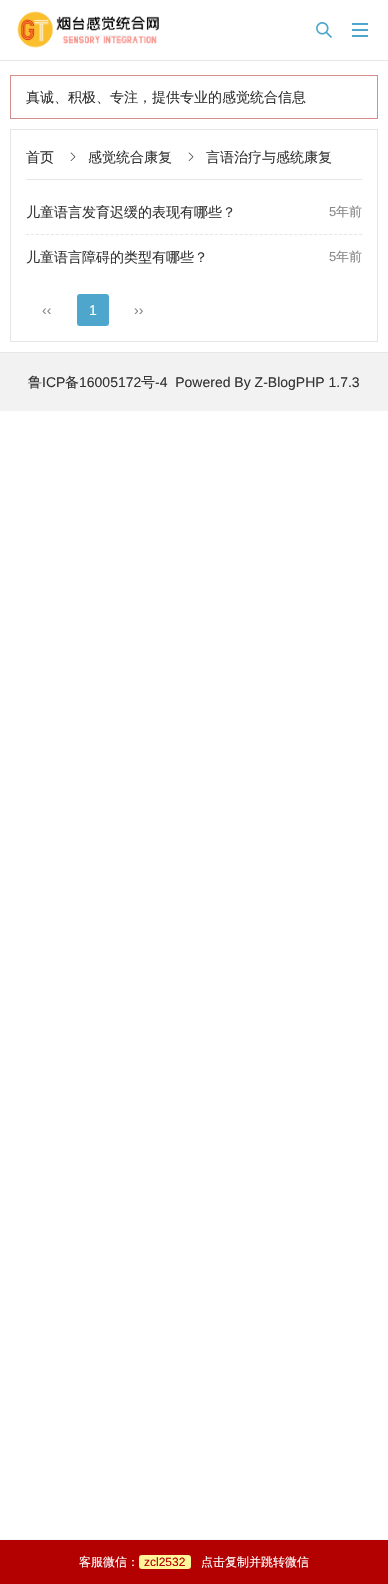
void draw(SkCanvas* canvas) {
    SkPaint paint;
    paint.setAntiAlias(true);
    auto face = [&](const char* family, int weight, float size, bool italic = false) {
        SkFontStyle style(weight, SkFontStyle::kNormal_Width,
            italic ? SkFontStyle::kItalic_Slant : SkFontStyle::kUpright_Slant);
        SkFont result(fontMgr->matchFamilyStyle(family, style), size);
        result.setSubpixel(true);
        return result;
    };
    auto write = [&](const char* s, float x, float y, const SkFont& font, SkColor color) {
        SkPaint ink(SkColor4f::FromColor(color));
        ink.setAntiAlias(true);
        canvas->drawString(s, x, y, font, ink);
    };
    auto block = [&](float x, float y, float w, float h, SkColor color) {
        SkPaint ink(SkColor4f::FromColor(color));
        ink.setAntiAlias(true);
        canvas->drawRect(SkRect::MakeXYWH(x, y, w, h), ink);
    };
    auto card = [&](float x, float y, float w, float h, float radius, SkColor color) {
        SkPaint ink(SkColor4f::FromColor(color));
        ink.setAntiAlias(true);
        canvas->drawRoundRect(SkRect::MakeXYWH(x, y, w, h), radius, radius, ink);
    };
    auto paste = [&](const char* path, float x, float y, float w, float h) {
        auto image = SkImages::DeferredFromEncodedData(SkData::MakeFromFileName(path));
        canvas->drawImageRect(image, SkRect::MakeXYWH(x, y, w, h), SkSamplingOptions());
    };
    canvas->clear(SK_ColorWHITE);
    block(0, 60, 388, 1, SkColorSetRGB(230, 230, 230));
    paste("pic1.png", 17, 11, 142, 37);
    paste("pic2.png", 316, 22, 16, 16);
    paste("pic3.png", 352, 23, 16, 14);
    paint.setStyle(SkPaint::kStroke_Style);
    paint.setStrokeWidth(1);
    paint.setColor(SkColorSetRGB(216, 141, 141));
    canvas->drawRect(SkRect::MakeXYWH(10.5f, 75.5f, 367, 43), paint);
    auto kFont1 = face("WenQuanYi Zen Hei", 500, 14);
    write("真诚、积极、专注，提供专业的感觉统合信息", 26, 102, kFont1, SkColorSetRGB(51, 51, 51));
    paint.setColor(SkColorSetRGB(230, 230, 230));
    canvas->drawRect(SkRect::MakeXYWH(10.5f, 129.5f, 367, 212), paint);
    block(26, 179, 336, 1, SkColorSetRGB(230, 230, 230));
    write("首页", 26, 162, kFont1, SkColorSetRGB(51, 51, 51));
    paste("pic4.png", 70, 152, 6, 9);
    write("感觉统合康复", 88, 162, kFont1, SkColorSetRGB(51, 51, 51));
    paste("pic4.png", 188, 152, 6, 9);
    write("言语治疗与感统康复", 206, 162, kFont1, SkColorSetRGB(51, 51, 51));
    write("儿童语言发育迟缓的表现有哪些？", 26, 217, kFont1, SkColorSetRGB(51, 51, 51));
    auto kFont2 = face("Liberation Sans", 400, 13);
    write("5", 329, 216, kFont2, SkColorSetRGB(136, 136, 136));
    auto kFont3 = face("WenQuanYi Zen Hei", 500, 13);
    write("年前", 336, 216, kFont3, SkColorSetRGB(136, 136, 136));
    paint.setPathEffect(SkDashPathEffect::Make({{3, 1.97f}}, 0));
    canvas->drawPath(SkPathBuilder().moveTo(26, 234.5f).lineTo(362, 234.5f).detach(), paint);
    paint.setPathEffect(nullptr);
    write("儿童语言障碍的类型有哪些？", 26, 262, kFont1, SkColorSetRGB(51, 51, 51));
    write("5", 329, 261, kFont2, SkColorSetRGB(136, 136, 136));
    write("年前", 336, 261, kFont3, SkColorSetRGB(136, 136, 136));
    auto kFont4 = face("Liberation Sans", 400, 14);
    write("‹‹", 42, 315, kFont4, SkColorSetRGB(136, 136, 136));
    card(77, 294, 32, 32, 3, SkColorSetRGB(78, 166, 204));
    write("1", 89, 315, kFont4, SK_ColorWHITE);
    write("››", 134, 315, kFont4, SkColorSetRGB(136, 136, 136));
    block(0, 353, 388, 58, SkColorSetRGB(242, 242, 242));
    block(0, 352, 388, 1, SkColorSetRGB(230, 230, 230));
    write("鲁", 28, 387, kFont1, SkColorSetRGB(51, 51, 51));
    write("ICP", 42, 387, kFont4, SkColorSetRGB(51, 51, 51));
    write("备", 65, 387, kFont1, SkColorSetRGB(51, 51, 51));
    write("16005172", 79, 387, kFont4, SkColorSetRGB(51, 51, 51));
    write("号", 141, 387, kFont1, SkColorSetRGB(51, 51, 51));
    write("-4  Powered By Z-BlogPHP 1.7.3", 155, 387, kFont4, SkColorSetRGB(51, 51, 51));
    paint.setStyle(SkPaint::kFill_Style);
    paint.setColor(SkColorSetRGB(220, 220, 220));
    paint.setMaskFilter(SkMaskFilter::MakeBlur(kNormal_SkBlurStyle, 1.5f));
    canvas->drawRect(SkRect::MakeXYWH(0, 1541, 388, 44), paint);
    paint.setMaskFilter(nullptr);
    block(0, 1540, 388, 44, SkColorSetRGB(179, 0, 0));
    auto kFont5 = face("WenQuanYi Zen Hei", 500, 12);
    write("客服微信：", 79, 1566, kFont5, SK_ColorWHITE);
    card(139, 1555, 52, 14, 3, SkColorSetRGB(255, 245, 153));
    auto kFont6 = face("Liberation Sans", 400, 12);
    write("zcl2532", 144, 1566, kFont6, SkColorSetRGB(179, 0, 0));
    write("点击复制并跳转微信", 201, 1566, kFont5, SK_ColorWHITE);
}
